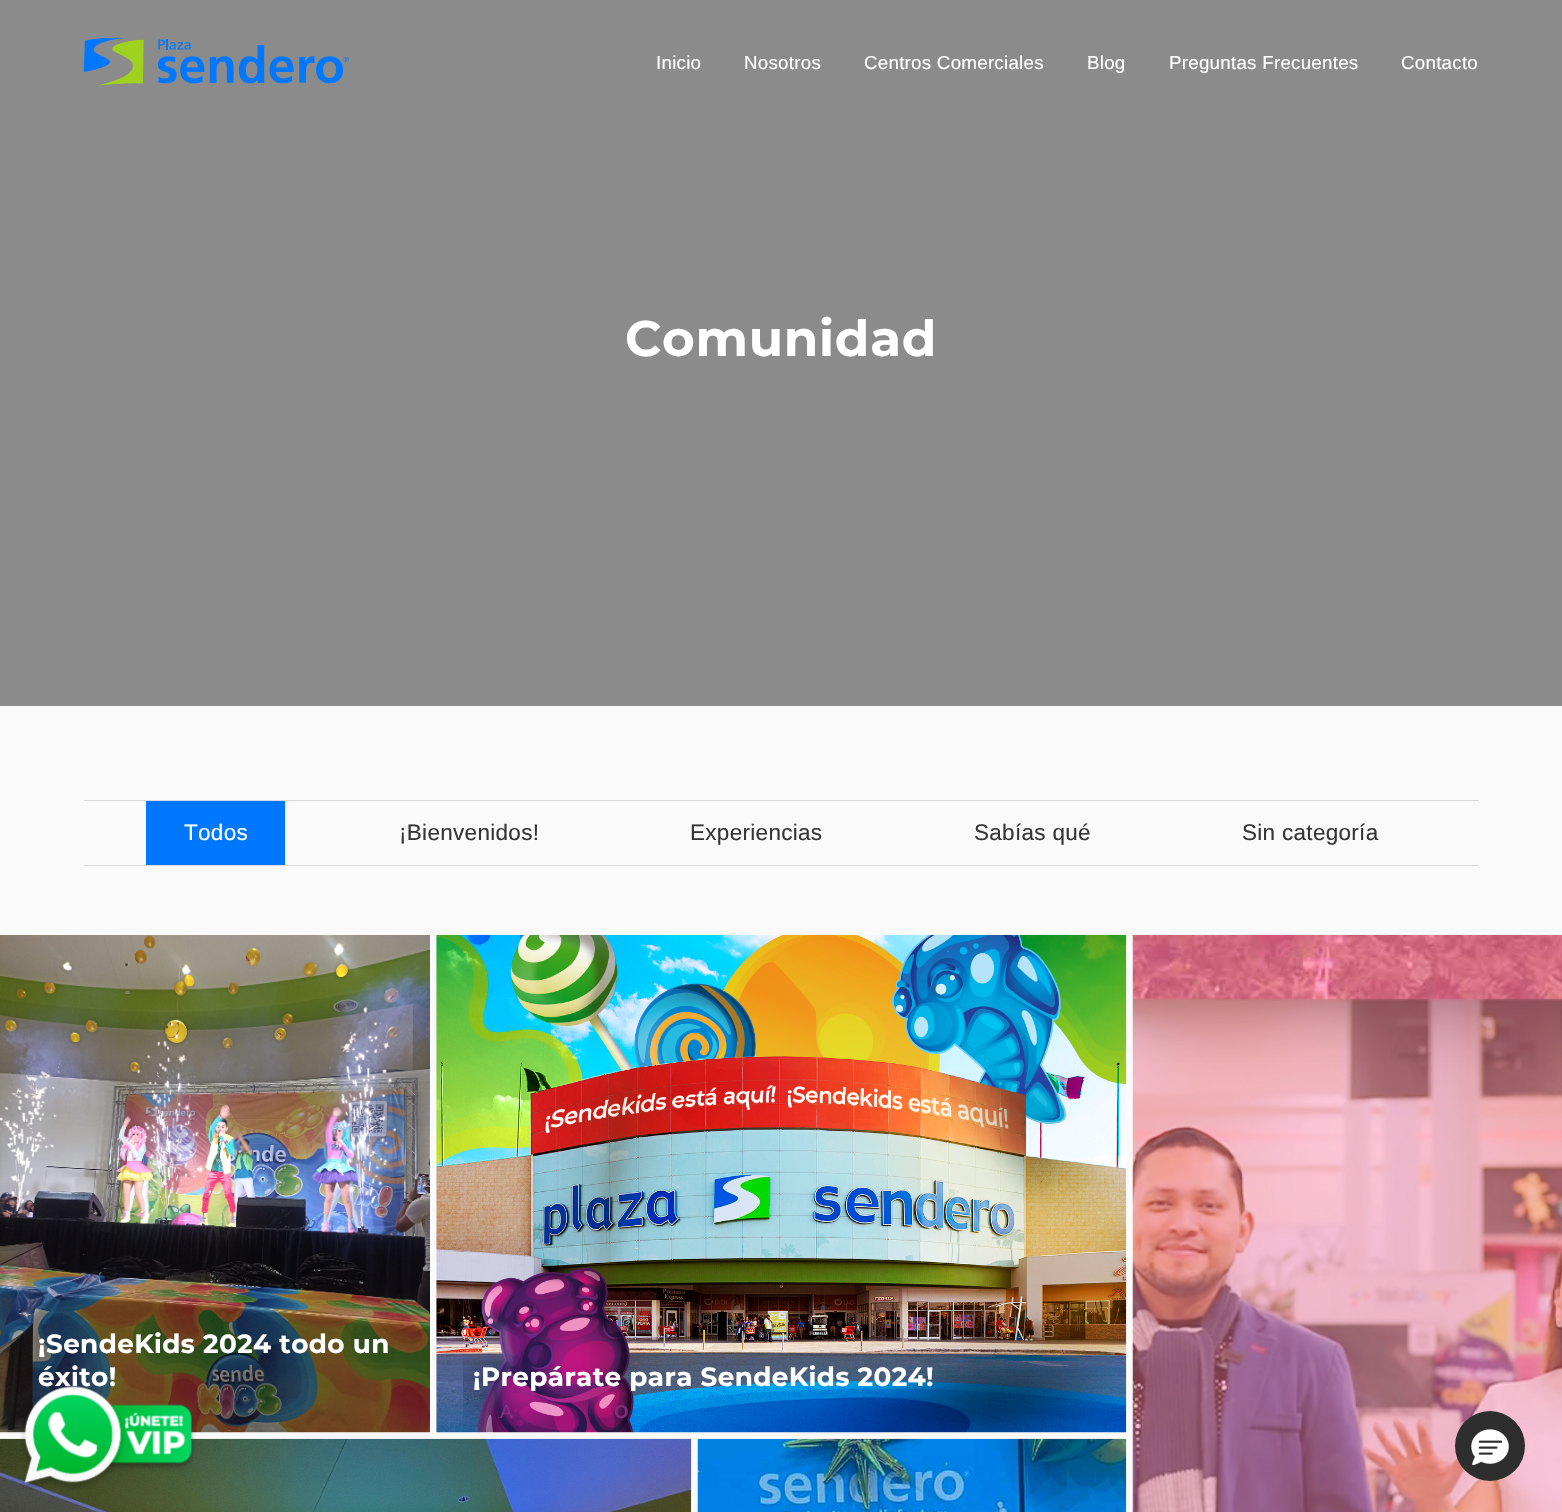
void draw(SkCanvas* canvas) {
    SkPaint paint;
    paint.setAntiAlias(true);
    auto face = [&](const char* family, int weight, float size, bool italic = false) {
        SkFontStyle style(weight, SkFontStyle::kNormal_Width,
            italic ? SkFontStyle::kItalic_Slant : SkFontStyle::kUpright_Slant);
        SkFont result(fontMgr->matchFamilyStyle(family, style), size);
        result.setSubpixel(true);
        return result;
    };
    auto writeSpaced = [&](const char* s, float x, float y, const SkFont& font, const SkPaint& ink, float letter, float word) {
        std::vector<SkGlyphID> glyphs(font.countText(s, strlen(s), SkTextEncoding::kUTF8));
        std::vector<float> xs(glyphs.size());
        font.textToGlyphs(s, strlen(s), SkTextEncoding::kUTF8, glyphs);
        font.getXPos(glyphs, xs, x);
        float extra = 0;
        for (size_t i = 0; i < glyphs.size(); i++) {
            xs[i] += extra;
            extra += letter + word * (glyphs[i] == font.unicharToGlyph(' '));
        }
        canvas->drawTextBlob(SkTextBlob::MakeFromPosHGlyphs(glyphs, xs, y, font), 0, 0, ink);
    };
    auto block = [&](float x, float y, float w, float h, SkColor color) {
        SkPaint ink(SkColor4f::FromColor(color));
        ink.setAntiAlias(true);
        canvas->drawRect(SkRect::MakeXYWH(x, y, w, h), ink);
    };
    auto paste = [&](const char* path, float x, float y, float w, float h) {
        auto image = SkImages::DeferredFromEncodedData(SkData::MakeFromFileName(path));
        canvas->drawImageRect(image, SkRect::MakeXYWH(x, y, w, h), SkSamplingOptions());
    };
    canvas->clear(SkColorSetRGB(250, 250, 250));
    block(0, 0, 1562, 706, SkColorSetRGB(139, 139, 139));
    paste("pic1.png", 84, 38, 265, 48);
    auto kFont1 = face("Liberation Sans", 400, 18.75f);
    paint.setColor(SK_ColorWHITE);
    writeSpaced("Inicio", 656, 69, kFont1, paint, 0.25f, 0);
    writeSpaced("Nosotros", 744, 69, kFont1, paint, 0.25f, 0);
    writeSpaced("Centros Comerciales", 864, 69, kFont1, paint, 0.25f, 0);
    writeSpaced("Blog", 1087, 69, kFont1, paint, 0.25f, 0);
    writeSpaced("Preguntas Frecuentes", 1169, 69, kFont1, paint, 0.25f, 0);
    writeSpaced("Contacto", 1401, 69, kFont1, paint, 0.25f, 0);
    auto kFont2 = face("Montserrat", 700, 50);
    writeSpaced("Comunidad", 625, 356, kFont2, paint, 0.75f, 0);
    block(84, 800, 1395, 1, SkColorSetRGB(217, 217, 217));
    block(84, 865, 1395, 1, SkColorSetRGB(217, 217, 217));
    block(146, 801, 139, 64, SkColorSetRGB(0, 119, 255));
    auto kFont3 = face("Liberation Sans", 400, 22.5f);
    writeSpaced("Todos", 184, 840, kFont3, paint, 0.3f, 0);
    paint.setColor(SkColorSetRGB(53, 53, 53));
    writeSpaced("¡Bienvenidos!", 399, 840, kFont3, paint, 0.3f, 0);
    writeSpaced("Experiencias", 690, 840, kFont3, paint, 0.3f, 0);
    writeSpaced("Sabías qué", 974, 840, kFont3, paint, 0.3f, 0);
    writeSpaced("Sin categoría", 1242, 840, kFont3, paint, 0.3f, 0);
    paste("pic2.png", 0, 935, 430, 498);
    auto kFont4 = face("Montserrat", 700, 26.25f);
    paint.setColor(SK_ColorWHITE);
    writeSpaced("¡SendeKids 2024 todo un", 38, 1353, kFont4, paint, 0.4f, 0);
    writeSpaced("éxito!", 38, 1386, kFont4, paint, 0.4f, 0);
    paste("pic3.png", 436, 935, 691, 498);
    writeSpaced("¡Prepárate para SendeKids 2024!", 473, 1386, kFont4, paint, 0.4f, 0);
    paint.setColor(SkColorSetRGB(135, 48, 126));
    writeSpaced("A", 500, 1418, kFont1, paint, 0.25f, 0);
    auto kFont5 = face("Liberation Sans", 700, 18.75f);
    paint.setColor(SkColorSetRGB(128, 45, 119));
    writeSpaced("O", 614, 1418, kFont5, paint, 0.25f, 0);
    paste("pic4.png", 1132, 935, 430, 577);
    paste("pic5.png", 0, 1438, 692, 74);
    paste("pic6.png", 697, 1438, 430, 74);
    paste("pic7.png", 20, 1386, 176, 104);
    paint.setColor(SkColorSetRGB(46, 46, 46));
    canvas->drawCircle(1490, 1446, 35, paint);
    paste("pic8.png", 1471, 1429, 38, 37);
}
